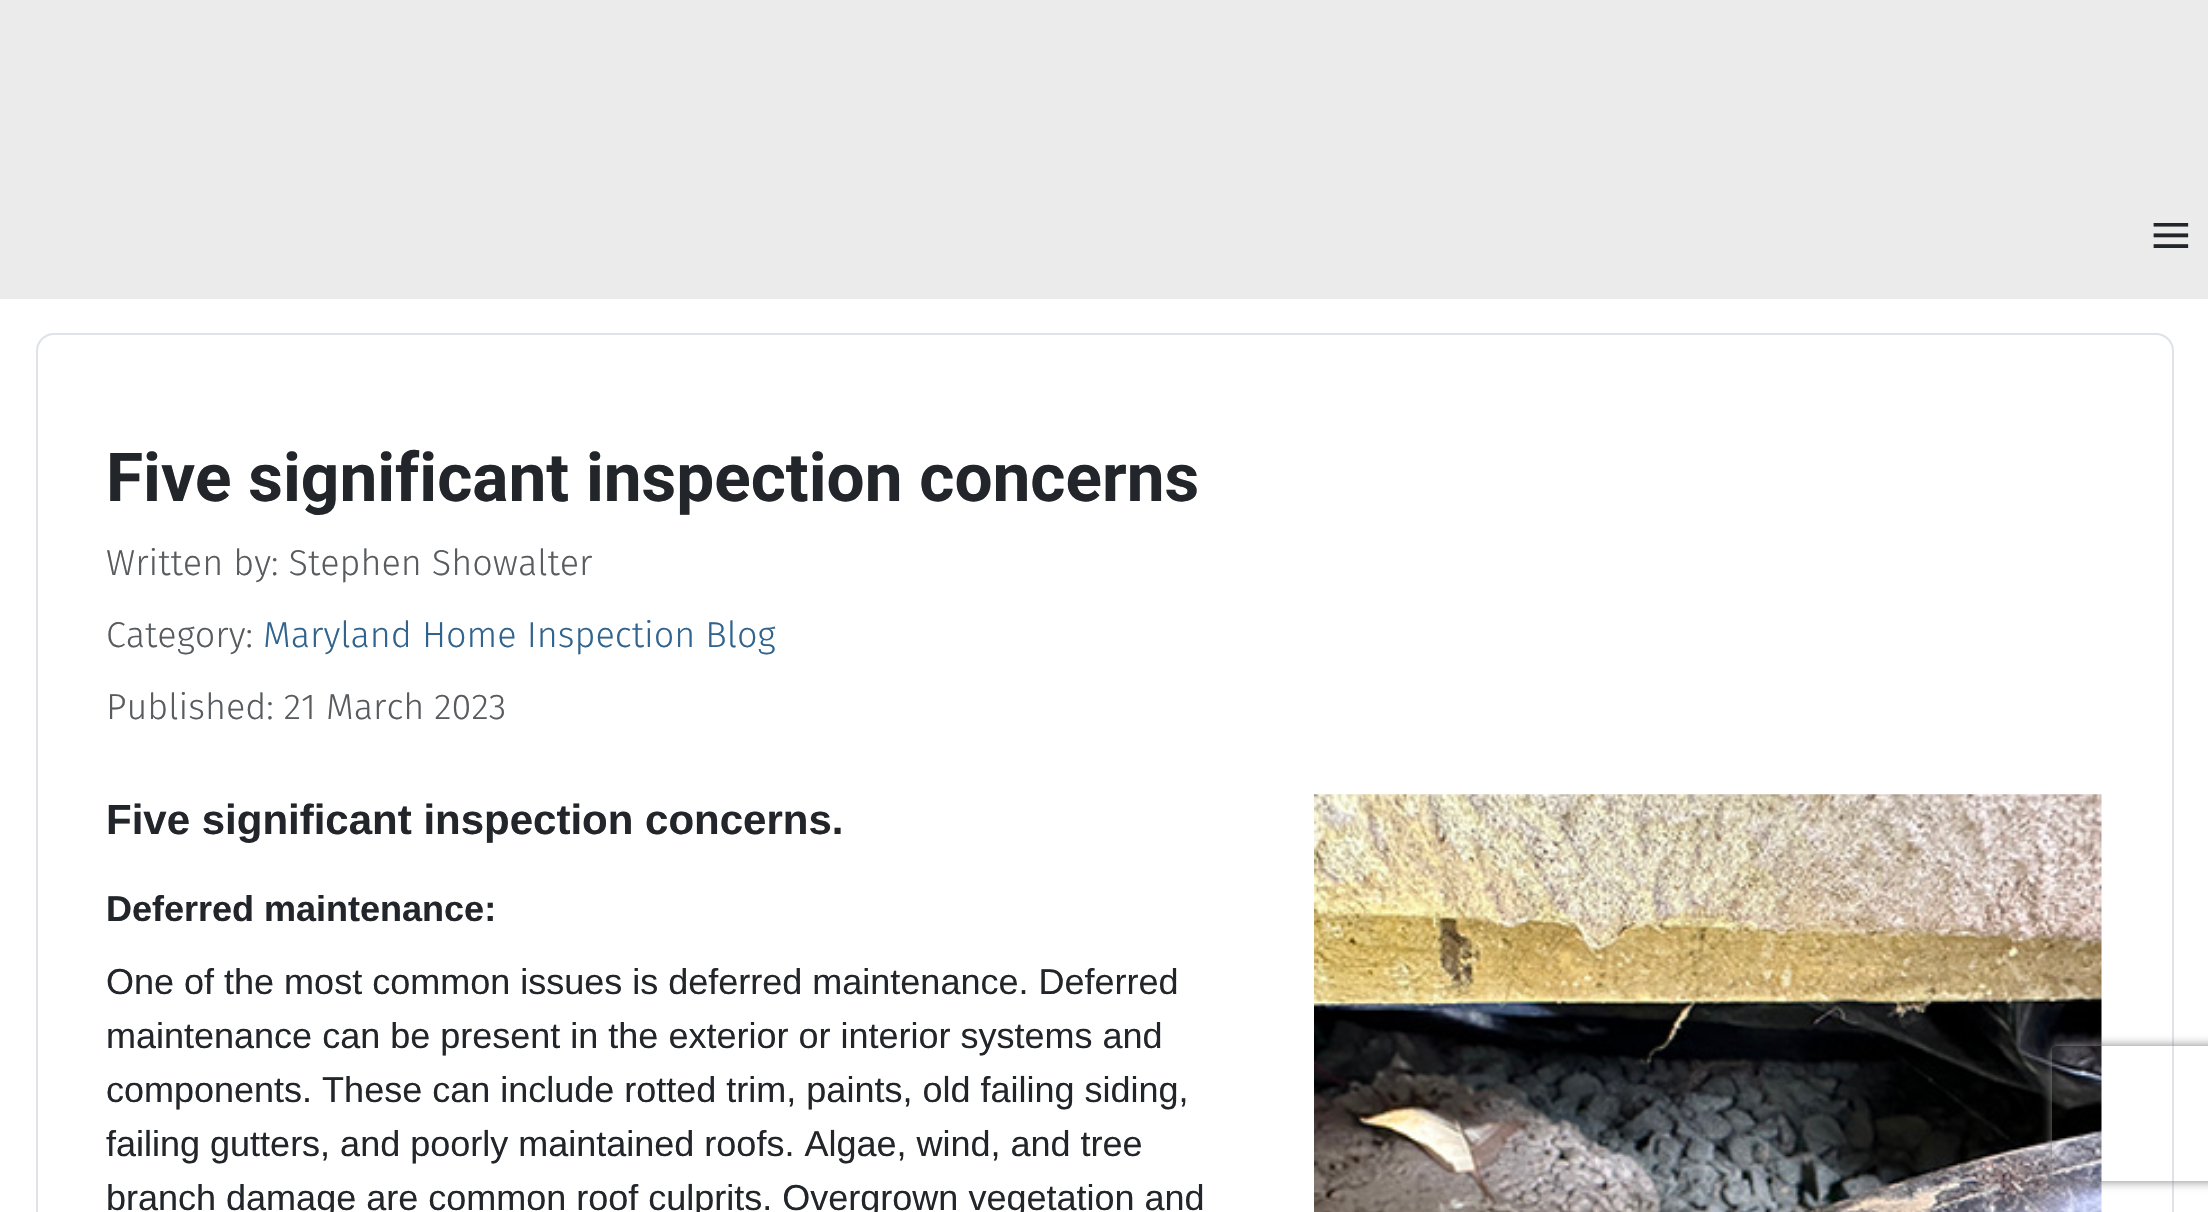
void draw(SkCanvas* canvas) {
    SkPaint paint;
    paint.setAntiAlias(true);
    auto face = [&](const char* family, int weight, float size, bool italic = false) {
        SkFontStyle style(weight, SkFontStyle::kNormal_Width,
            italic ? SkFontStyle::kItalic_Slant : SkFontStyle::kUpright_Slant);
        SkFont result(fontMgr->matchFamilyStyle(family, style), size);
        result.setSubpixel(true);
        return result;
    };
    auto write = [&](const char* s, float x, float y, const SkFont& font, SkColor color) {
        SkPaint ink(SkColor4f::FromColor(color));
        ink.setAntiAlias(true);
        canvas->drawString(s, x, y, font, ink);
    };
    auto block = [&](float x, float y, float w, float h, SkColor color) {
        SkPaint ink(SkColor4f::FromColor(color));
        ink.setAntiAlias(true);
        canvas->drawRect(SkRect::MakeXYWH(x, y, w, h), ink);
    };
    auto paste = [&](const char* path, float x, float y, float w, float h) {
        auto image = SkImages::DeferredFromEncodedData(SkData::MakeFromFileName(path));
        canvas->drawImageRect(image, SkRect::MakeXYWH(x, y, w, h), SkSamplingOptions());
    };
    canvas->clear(SK_ColorWHITE);
    block(0, 0, 2208, 297, SkColorSetRGB(235, 235, 235));
    block(0, 297, 2208, 2, SkColorSetRGB(234, 234, 234));
    auto kFont1 = face("Liberation Serif", 400, 74);
    write("≡", 2150, 260, kFont1, SkColorSetRGB(34, 38, 42));
    paint.setStyle(SkPaint::kStroke_Style);
    paint.setStrokeWidth(2);
    paint.setColor(SkColorSetRGB(223, 227, 231));
    canvas->drawRoundRect(SkRect::MakeXYWH(37, 334, 2136, 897), 17, 17, paint);
    auto kFont2 = face("Roboto", 700, 67.5f);
    write("Five significant inspection concerns", 106, 501, kFont2, SkColorSetRGB(34, 38, 42));
    auto kFont3 = face("Fira Sans", 300, 36);
    write("Written by: Stephen Showalter", 106, 575, kFont3, SkColorSetRGB(89, 92, 95));
    write("Category:", 106, 647, kFont3, SkColorSetRGB(89, 92, 95));
    write("Maryland Home Inspection Blog", 263, 647, kFont3, SkColorSetRGB(48, 99, 141));
    write("Published: 21 March 2023", 106, 719, kFont3, SkColorSetRGB(89, 92, 95));
    auto kFont4 = face("Liberation Sans", 700, 42);
    write("Five significant inspection concerns.", 106, 834, kFont4, SkColorSetRGB(34, 38, 42));
    paste("pic1.png", 1314, 794, 788, 418);
    auto kFont5 = face("Liberation Sans", 700, 36);
    write("Deferred maintenance:", 106, 921, kFont5, SkColorSetRGB(34, 38, 42));
    auto kFont6 = face("Liberation Sans", 400, 36);
    write("One of the most common issues is deferred maintenance. Deferred", 106, 994, kFont6, SkColorSetRGB(34, 38, 42));
    write("maintenance can be present in the exterior or interior systems and", 106, 1048, kFont6, SkColorSetRGB(34, 38, 42));
    write("components. These can include rotted trim, paints, old failing siding,", 106, 1102, kFont6, SkColorSetRGB(34, 38, 42));
    write("failing gutters, and poorly maintained roofs. Algae, wind, and tree", 106, 1156, kFont6, SkColorSetRGB(34, 38, 42));
    write("branch damage are common roof culprits. Overgrown vegetation and", 106, 1210, kFont6, SkColorSetRGB(34, 38, 42));
    canvas->save();
    canvas->clipPath(SkPathBuilder(SkPathFillType::kEvenOdd).moveTo(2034, 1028).lineTo(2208, 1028).lineTo(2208, 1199).lineTo(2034, 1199).close().moveTo(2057, 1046).lineTo(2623, 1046).cubicTo(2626, 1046, 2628, 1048, 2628, 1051).lineTo(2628, 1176).cubicTo(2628, 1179, 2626, 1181, 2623, 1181).lineTo(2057, 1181).cubicTo(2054, 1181, 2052, 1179, 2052, 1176).lineTo(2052, 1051).cubicTo(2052, 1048, 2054, 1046, 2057, 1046).close().detach(), true);
    paint.setStyle(SkPaint::kFill_Style);
    paint.setColor(SkColorSetRGB(128, 128, 128));
    paint.setMaskFilter(SkMaskFilter::MakeBlur(kNormal_SkBlurStyle, 5.5f));
    canvas->drawRoundRect(SkRect::MakeXYWH(2052, 1046, 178, 135), 5, 5, paint);
    paint.setMaskFilter(nullptr);
    canvas->restore();
}
